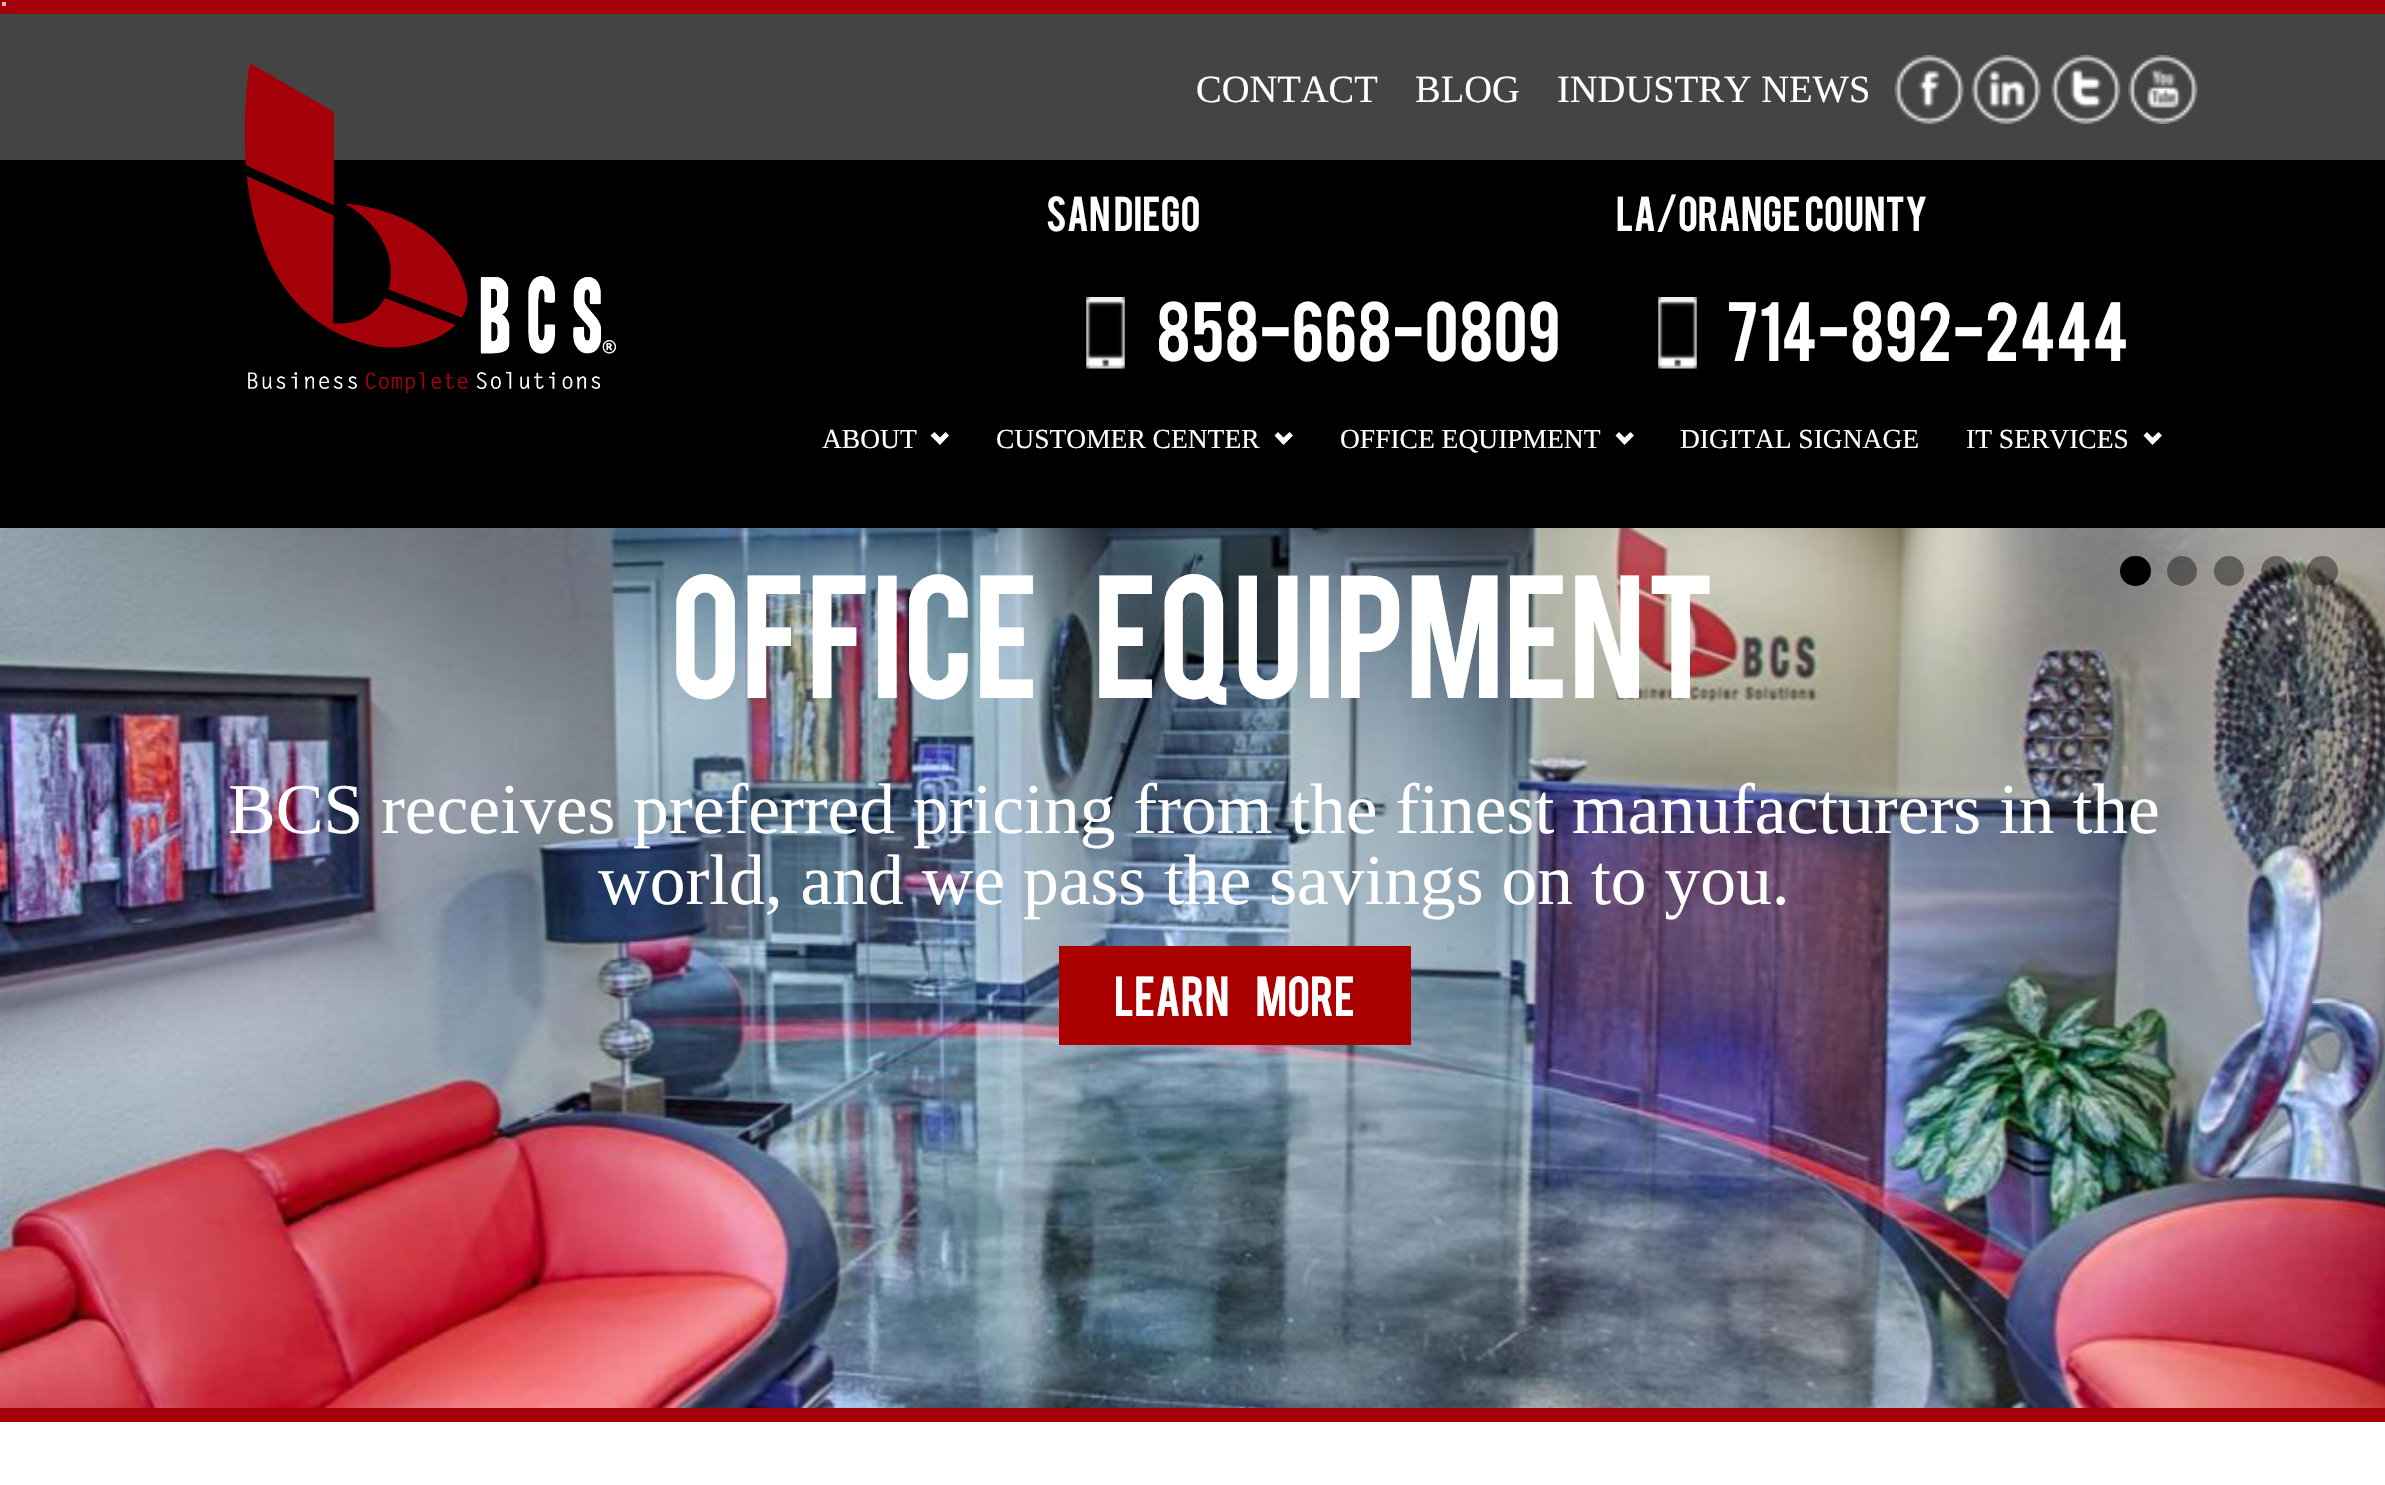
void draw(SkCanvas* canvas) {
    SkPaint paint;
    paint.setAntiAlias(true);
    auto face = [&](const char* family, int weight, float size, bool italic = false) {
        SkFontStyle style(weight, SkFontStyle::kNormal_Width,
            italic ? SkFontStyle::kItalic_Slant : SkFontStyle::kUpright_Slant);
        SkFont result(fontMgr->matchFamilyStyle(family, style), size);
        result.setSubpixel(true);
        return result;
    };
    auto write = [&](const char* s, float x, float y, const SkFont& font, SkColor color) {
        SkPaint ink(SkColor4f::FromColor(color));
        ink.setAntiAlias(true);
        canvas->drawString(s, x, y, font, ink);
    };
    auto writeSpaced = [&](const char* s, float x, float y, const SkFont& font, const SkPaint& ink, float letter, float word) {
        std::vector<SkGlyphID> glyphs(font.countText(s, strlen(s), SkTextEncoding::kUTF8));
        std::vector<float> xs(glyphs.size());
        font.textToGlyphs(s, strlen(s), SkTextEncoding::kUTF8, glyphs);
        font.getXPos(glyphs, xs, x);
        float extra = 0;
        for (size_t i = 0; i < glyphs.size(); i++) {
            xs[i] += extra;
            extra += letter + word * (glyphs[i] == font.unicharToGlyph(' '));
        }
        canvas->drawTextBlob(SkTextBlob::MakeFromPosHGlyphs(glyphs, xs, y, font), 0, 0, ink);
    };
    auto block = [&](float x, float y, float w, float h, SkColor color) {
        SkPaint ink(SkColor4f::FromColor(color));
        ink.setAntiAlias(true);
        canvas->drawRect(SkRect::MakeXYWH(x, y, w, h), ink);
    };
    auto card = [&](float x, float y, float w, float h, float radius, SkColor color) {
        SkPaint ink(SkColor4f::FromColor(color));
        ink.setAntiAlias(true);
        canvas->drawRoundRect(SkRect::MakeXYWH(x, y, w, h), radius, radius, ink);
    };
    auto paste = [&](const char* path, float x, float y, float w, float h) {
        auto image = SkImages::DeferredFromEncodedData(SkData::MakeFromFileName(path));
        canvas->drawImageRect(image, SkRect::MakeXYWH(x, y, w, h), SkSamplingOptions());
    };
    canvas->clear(SK_ColorBLACK);
    block(0, 0, 2385, 14, SkColorSetRGB(164, 0, 10));
    block(2, 2, 4, 4, SkColorSetRGB(228, 179, 182));
    block(0, 14, 2385, 146, SkColorSetRGB(68, 68, 68));
    auto kFont1 = face("Liberation Serif", 400, 38.5f);
    write("CONTACT", 1196, 102, kFont1, SK_ColorWHITE);
    write("BLOG", 1415, 102, kFont1, SK_ColorWHITE);
    write("INDUSTRY NEWS", 1557, 102, kFont1, SK_ColorWHITE);
    paste("pic1.png", 1894, 55, 70, 69);
    paste("pic2.png", 1971, 55, 70, 69);
    paste("pic3.png", 2051, 55, 70, 69);
    paste("pic4.png", 2128, 55, 70, 69);
    paste("pic5.png", 244, 63, 372, 331);
    auto kFont2 = face("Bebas", 400, 38.5f);
    write("San Diego", 1046, 231, kFont2, SK_ColorWHITE);
    paste("pic6.png", 1086, 297, 39, 72);
    auto kFont3 = face("Bebas", 400, 66);
    write("858-668-0809", 1156, 361, kFont3, SK_ColorWHITE);
    write("LA/Orange County", 1616, 231, kFont2, SK_ColorWHITE);
    paste("pic6.png", 1658, 297, 39, 72);
    write("714-892-2444", 1726, 361, kFont3, SK_ColorWHITE);
    auto kFont4 = face("Liberation Serif", 400, 27.5f);
    write("ABOUT", 822, 448, kFont4, SK_ColorWHITE);
    paint.setColor(SK_ColorWHITE);
    canvas->drawPath(SkPathBuilder().moveTo(930.5f, 435.5f).lineTo(940, 445).lineTo(949, 435.5f).lineTo(945.5f, 432).lineTo(940, 437.5f).lineTo(934.5f, 432).close().detach(), paint);
    write("CUSTOMER CENTER", 996, 448, kFont4, SK_ColorWHITE);
    canvas->drawPath(SkPathBuilder().moveTo(1274.5f, 435.5f).lineTo(1283.5f, 445).lineTo(1293, 435.5f).lineTo(1289.5f, 432).lineTo(1283.5f, 437.5f).lineTo(1278, 432).close().detach(), paint);
    write("OFFICE EQUIPMENT", 1340, 448, kFont4, SK_ColorWHITE);
    canvas->drawPath(SkPathBuilder().moveTo(1615.5f, 435.5f).lineTo(1624.5f, 445).lineTo(1634, 435.5f).lineTo(1630.5f, 432).lineTo(1624.5f, 437.5f).lineTo(1619, 432).close().detach(), paint);
    write("DIGITAL SIGNAGE", 1680, 448, kFont4, SK_ColorWHITE);
    write("IT SERVICES", 1966, 448, kFont4, SK_ColorWHITE);
    canvas->drawPath(SkPathBuilder().moveTo(2143.5f, 435.5f).lineTo(2152.5f, 445).lineTo(2162, 435.5f).lineTo(2158.5f, 432).lineTo(2152.5f, 437.5f).lineTo(2147, 432).close().detach(), paint);
    block(0, 1422, 2385, 63, SK_ColorWHITE);
    paste("pic7.png", 0, 528, 2385, 880);
    card(2120, 556, 31, 30, 15, SK_ColorBLACK);
    paint.setColor(SkColorSetARGB(102, 0, 0, 0));
    canvas->drawCircle(2182, 571, 15, paint);
    canvas->drawCircle(2229, 571, 15, paint);
    canvas->drawCircle(2276, 571, 15, paint);
    card(2307, 556, 31, 30, 15, SkColorSetARGB(102, 0, 0, 0));
    block(0, 1408, 2385, 14, SkColorSetRGB(164, 0, 10));
    auto kFont5 = face("Bebas", 400, 137.5f);
    paint.setColor(SK_ColorWHITE);
    writeSpaced("Office Equipment", 670, 698, kFont5, paint, 0, 41);
    auto kFont6 = face("Liberation Serif", 400, 71.5f);
    write("BCS receives preferred pricing from the finest manufacturers in the", 228, 833, kFont6, SK_ColorWHITE);
    write("world, and we pass the savings on to you.", 598, 904, kFont6, SK_ColorWHITE);
    block(1059, 946, 352, 99, SkColorSetRGB(170, 0, 0));
    auto kFont7 = face("Bebas", 400, 44.25f);
    writeSpaced("LEARN MORE", 1114, 1016, kFont7, paint, 0, 22);
}
